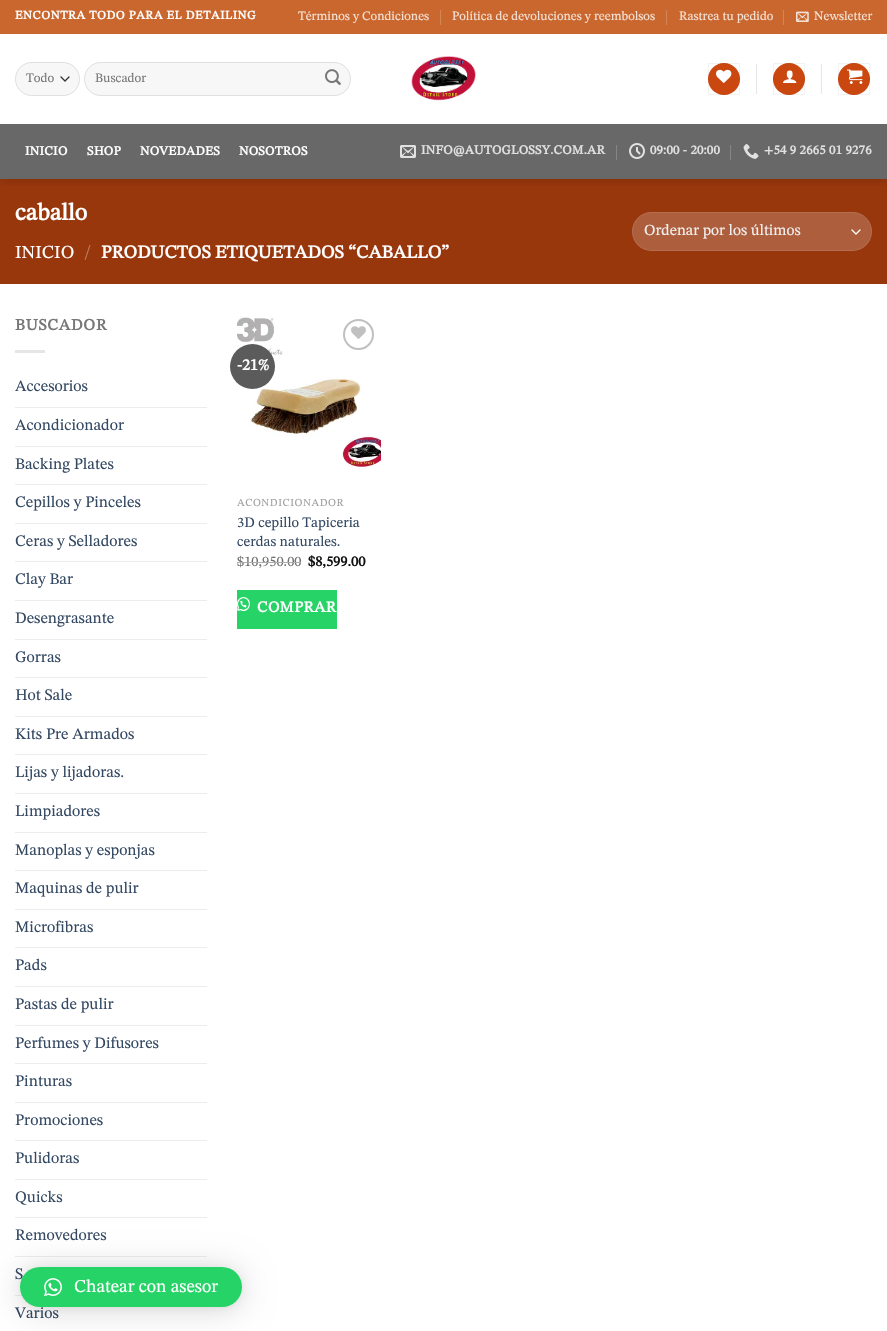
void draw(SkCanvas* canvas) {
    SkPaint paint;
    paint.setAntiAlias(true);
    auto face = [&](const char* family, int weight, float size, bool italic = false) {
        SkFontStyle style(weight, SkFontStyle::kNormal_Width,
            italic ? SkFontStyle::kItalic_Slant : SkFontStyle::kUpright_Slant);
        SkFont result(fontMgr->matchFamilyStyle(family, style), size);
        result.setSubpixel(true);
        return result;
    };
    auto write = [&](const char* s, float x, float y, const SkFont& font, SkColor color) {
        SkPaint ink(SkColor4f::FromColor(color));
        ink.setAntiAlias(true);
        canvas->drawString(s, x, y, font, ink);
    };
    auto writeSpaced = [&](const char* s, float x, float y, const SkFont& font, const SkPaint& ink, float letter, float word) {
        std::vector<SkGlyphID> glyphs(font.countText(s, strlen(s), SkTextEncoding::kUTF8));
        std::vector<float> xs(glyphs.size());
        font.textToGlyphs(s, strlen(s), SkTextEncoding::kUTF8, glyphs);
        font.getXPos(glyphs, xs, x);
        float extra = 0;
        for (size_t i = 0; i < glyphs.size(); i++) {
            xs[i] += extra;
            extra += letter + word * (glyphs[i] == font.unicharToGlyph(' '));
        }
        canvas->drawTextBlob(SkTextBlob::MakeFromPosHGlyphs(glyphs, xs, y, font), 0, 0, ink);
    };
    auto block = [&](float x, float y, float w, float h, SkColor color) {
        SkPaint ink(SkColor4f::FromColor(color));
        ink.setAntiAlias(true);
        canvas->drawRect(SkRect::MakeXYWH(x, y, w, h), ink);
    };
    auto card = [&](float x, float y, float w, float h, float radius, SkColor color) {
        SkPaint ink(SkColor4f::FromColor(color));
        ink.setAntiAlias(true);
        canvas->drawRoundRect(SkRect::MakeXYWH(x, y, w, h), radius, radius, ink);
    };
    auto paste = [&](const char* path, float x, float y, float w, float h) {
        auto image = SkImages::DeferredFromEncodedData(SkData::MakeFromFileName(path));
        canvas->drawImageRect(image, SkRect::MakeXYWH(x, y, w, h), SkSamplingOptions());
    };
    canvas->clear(SK_ColorWHITE);
    block(0, 179, 887, 105, SkColorSetRGB(152, 54, 12));
    canvas->save();
    canvas->clipRect(SkRect::MakeXYWH(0, 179, 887, 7));
    paint.setColor(SkColorSetARGB(38, 0, 0, 0));
    paint.setMaskFilter(SkMaskFilter::MakeBlur(kNormal_SkBlurStyle, 5));
    canvas->drawRect(SkRect::MakeXYWH(1, 1, 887, 179), paint);
    paint.setMaskFilter(nullptr);
    canvas->restore();
    block(0, 0, 887, 34, SkColorSetRGB(201, 103, 46));
    auto kFont1 = face("STIX Two Math", 700, 12);
    paint.setColor(SK_ColorWHITE);
    writeSpaced("ENCONTRA TODO PARA EL DETAILING", 15, 19, kFont1, paint, 0.6f, 0);
    auto kFont2 = face("STIX Two Math", 400, 12.75f);
    write("Términos y Condiciones", 298, 20, kFont2, SkColorSetRGB(244, 225, 213));
    block(440, 10, 1, 15, SkColorSetRGB(212, 133, 88));
    write("Política de devoluciones y reembolsos", 452, 20, kFont2, SkColorSetRGB(244, 225, 213));
    block(666, 10, 1, 15, SkColorSetRGB(212, 133, 88));
    write("Rastrea tu pedido", 679, 20, kFont2, SkColorSetRGB(244, 225, 213));
    block(783, 10, 1, 15, SkColorSetRGB(212, 133, 88));
    paste("pic1.png", 796, 11, 13, 11);
    write("Newsletter", 814, 20, kFont2, SkColorSetRGB(244, 225, 213));
    card(15, 62, 65, 34, 17, SkColorSetRGB(247, 247, 247));
    paint.setStyle(SkPaint::kStroke_Style);
    paint.setStrokeWidth(1.3f);
    paint.setStrokeCap(SkPaint::kRound_Cap);
    paint.setStrokeJoin(SkPaint::kRound_Join);
    paint.setColor(SkColorSetRGB(51, 51, 51));
    canvas->drawPath(SkPathBuilder().moveTo(61, 77).lineTo(65, 81).lineTo(69, 77).detach(), paint);
    paint.setStrokeWidth(1);
    paint.setStrokeCap(SkPaint::kButt_Cap);
    paint.setStrokeJoin(SkPaint::kMiter_Join);
    paint.setColor(SkColorSetARGB(23, 0, 0, 0));
    canvas->drawRoundRect(SkRect::MakeXYWH(15.5f, 62.5f, 64, 33), 16.5f, 16.5f, paint);
    auto kFont3 = face("STIX Two Math", 400, 13);
    write("Todo", 26, 82, kFont3, SkColorSetRGB(119, 119, 119));
    card(84, 62, 267, 34, 17, SkColorSetRGB(247, 247, 247));
    canvas->drawRoundRect(SkRect::MakeXYWH(84.5f, 62.5f, 266, 33), 16.5f, 16.5f, paint);
    write("Buscador", 95, 82, kFont3, SkColorSetRGB(119, 119, 119));
    paste("pic2.png", 325, 69, 16, 16);
    paste("pic3.png", 411, 56, 65, 45);
    paint.setStyle(SkPaint::kFill_Style);
    paint.setColor(SkColorSetRGB(202, 72, 16));
    canvas->drawCircle(724, 79, 16, paint);
    paint.setStyle(SkPaint::kStroke_Style);
    paint.setColor(SkColorSetARGB(13, 0, 0, 0));
    canvas->drawRect(SkRect::MakeXYWH(708.5f, 63.5f, 31, 31), paint);
    paste("pic4.png", 716, 69, 16, 14);
    block(756, 64, 1, 30, SkColorSetRGB(230, 230, 230));
    paint.setStyle(SkPaint::kFill_Style);
    paint.setColor(SkColorSetRGB(202, 72, 16));
    canvas->drawCircle(789, 79, 16, paint);
    paint.setStyle(SkPaint::kStroke_Style);
    paint.setColor(SkColorSetARGB(13, 0, 0, 0));
    canvas->drawRect(SkRect::MakeXYWH(773.5f, 63.5f, 31, 31), paint);
    paste("pic5.png", 783, 70, 14, 13);
    block(821, 64, 1, 30, SkColorSetRGB(230, 230, 230));
    paint.setStyle(SkPaint::kFill_Style);
    paint.setColor(SkColorSetRGB(202, 72, 16));
    canvas->drawCircle(854, 79, 16, paint);
    paint.setStyle(SkPaint::kStroke_Style);
    paint.setColor(SkColorSetARGB(13, 0, 0, 0));
    canvas->drawRect(SkRect::MakeXYWH(838.5f, 63.5f, 31, 31), paint);
    paste("pic6.png", 847, 69, 16, 15);
    block(0, 124, 887, 55, SkColorSetRGB(104, 104, 104));
    auto kFont4 = face("STIX Two Math", 700, 12.75f);
    paint.setStyle(SkPaint::kFill_Style);
    paint.setColor(SK_ColorWHITE);
    writeSpaced("INICIO", 25, 155, kFont4, paint, 0.25f, 0);
    writeSpaced("SHOP", 87, 155, kFont4, paint, 0.25f, 0);
    writeSpaced("NOVEDADES", 140, 155, kFont4, paint, 0.25f, 0);
    writeSpaced("NOSOTROS", 239, 155, kFont4, paint, 0.25f, 0);
    paste("pic7.png", 400, 145, 16, 13);
    paint.setColor(SkColorSetRGB(225, 225, 225));
    writeSpaced("INFO@AUTOGLOSSY.COM.AR", 421, 154, kFont4, paint, 0.25f, 0);
    block(616, 145, 1, 15, SkColorSetRGB(134, 134, 134));
    paste("pic8.png", 629, 143, 16, 16);
    writeSpaced("09:00 - 20:00", 650, 154, kFont4, paint, 0.25f, 0);
    block(730, 145, 1, 15, SkColorSetRGB(134, 134, 134));
    paste("pic9.png", 743, 144, 16, 15);
    writeSpaced("+54 9 2665 01 9276", 764, 154, kFont4, paint, 0.25f, 0);
    auto kFont5 = face("STIX Two Math", 700, 24);
    write("caballo", 15, 220, kFont5, SK_ColorWHITE);
    auto kFont6 = face("STIX Two Math", 400, 18.4f);
    write("INICIO", 15, 258, kFont6, SK_ColorWHITE);
    write("/", 84, 258, kFont6, SkColorSetRGB(188, 124, 97));
    auto kFont7 = face("STIX Two Math", 700, 18.4f);
    write("PRODUCTOS ETIQUETADOS “CABALLO”", 101, 258, kFont7, SK_ColorWHITE);
    card(632, 212, 240, 39, 19.5f, SkColorSetRGB(173, 94, 61));
    paint.setStyle(SkPaint::kStroke_Style);
    paint.setStrokeWidth(1.3f);
    paint.setStrokeCap(SkPaint::kRound_Cap);
    paint.setStrokeJoin(SkPaint::kRound_Join);
    paint.setColor(SK_ColorWHITE);
    canvas->drawPath(SkPathBuilder().moveTo(852, 230).lineTo(856, 234).lineTo(860, 230).detach(), paint);
    paint.setStrokeWidth(1);
    paint.setStrokeCap(SkPaint::kButt_Cap);
    paint.setStrokeJoin(SkPaint::kMiter_Join);
    paint.setColor(SkColorSetARGB(23, 255, 255, 255));
    canvas->drawRoundRect(SkRect::MakeXYWH(632.5f, 212.5f, 239, 38), 19, 19, paint);
    auto kFont8 = face("STIX Two Math", 400, 15.5f);
    write("Ordenar por los últimos", 644, 235, kFont8, SkColorSetRGB(241, 241, 241));
    auto kFont9 = face("STIX Two Math", 700, 16);
    paint.setStyle(SkPaint::kFill_Style);
    paint.setColor(SkColorSetRGB(119, 119, 119));
    writeSpaced("BUSCADOR", 15, 330, kFont9, paint, 0.75f, 0);
    block(15, 350, 30, 3, SkColorSetRGB(230, 230, 230));
    auto kFont10 = face("STIX Two Math", 400, 16);
    write("Accesorios", 15, 391, kFont10, SkColorSetRGB(51, 72, 98));
    block(15, 407, 192, 1, SkColorSetRGB(236, 236, 236));
    write("Acondicionador", 15, 430, kFont10, SkColorSetRGB(51, 72, 98));
    block(15, 446, 192, 1, SkColorSetRGB(236, 236, 236));
    write("Backing Plates", 15, 469, kFont10, SkColorSetRGB(51, 72, 98));
    block(15, 484, 192, 1, SkColorSetRGB(236, 236, 236));
    write("Cepillos y Pinceles", 15, 507, kFont10, SkColorSetRGB(51, 72, 98));
    block(15, 523, 192, 1, SkColorSetRGB(236, 236, 236));
    write("Ceras y Selladores", 15, 546, kFont10, SkColorSetRGB(51, 72, 98));
    block(15, 561, 192, 1, SkColorSetRGB(236, 236, 236));
    write("Clay Bar", 15, 584, kFont10, SkColorSetRGB(51, 72, 98));
    block(15, 600, 192, 1, SkColorSetRGB(236, 236, 236));
    write("Desengrasante", 15, 623, kFont10, SkColorSetRGB(51, 72, 98));
    block(15, 639, 192, 1, SkColorSetRGB(236, 236, 236));
    write("Gorras", 15, 662, kFont10, SkColorSetRGB(51, 72, 98));
    block(15, 677, 192, 1, SkColorSetRGB(236, 236, 236));
    write("Hot Sale", 15, 700, kFont10, SkColorSetRGB(51, 72, 98));
    block(15, 716, 192, 1, SkColorSetRGB(236, 236, 236));
    write("Kits Pre Armados", 15, 739, kFont10, SkColorSetRGB(51, 72, 98));
    block(15, 754, 192, 1, SkColorSetRGB(236, 236, 236));
    write("Lijas y lijadoras.", 15, 777, kFont10, SkColorSetRGB(51, 72, 98));
    block(15, 793, 192, 1, SkColorSetRGB(236, 236, 236));
    write("Limpiadores", 15, 816, kFont10, SkColorSetRGB(51, 72, 98));
    block(15, 832, 192, 1, SkColorSetRGB(236, 236, 236));
    write("Manoplas y esponjas", 15, 855, kFont10, SkColorSetRGB(51, 72, 98));
    block(15, 870, 192, 1, SkColorSetRGB(236, 236, 236));
    write("Maquinas de pulir", 15, 893, kFont10, SkColorSetRGB(51, 72, 98));
    block(15, 909, 192, 1, SkColorSetRGB(236, 236, 236));
    write("Microfibras", 15, 932, kFont10, SkColorSetRGB(51, 72, 98));
    block(15, 947, 192, 1, SkColorSetRGB(236, 236, 236));
    write("Pads", 15, 970, kFont10, SkColorSetRGB(51, 72, 98));
    block(15, 986, 192, 1, SkColorSetRGB(236, 236, 236));
    write("Pastas de pulir", 15, 1009, kFont10, SkColorSetRGB(51, 72, 98));
    block(15, 1025, 192, 1, SkColorSetRGB(236, 236, 236));
    write("Perfumes y Difusores", 15, 1048, kFont10, SkColorSetRGB(51, 72, 98));
    block(15, 1063, 192, 1, SkColorSetRGB(236, 236, 236));
    write("Pinturas", 15, 1086, kFont10, SkColorSetRGB(51, 72, 98));
    block(15, 1102, 192, 1, SkColorSetRGB(236, 236, 236));
    write("Promociones", 15, 1125, kFont10, SkColorSetRGB(51, 72, 98));
    block(15, 1140, 192, 1, SkColorSetRGB(236, 236, 236));
    write("Pulidoras", 15, 1163, kFont10, SkColorSetRGB(51, 72, 98));
    block(15, 1179, 192, 1, SkColorSetRGB(236, 236, 236));
    write("Quicks", 15, 1202, kFont10, SkColorSetRGB(51, 72, 98));
    block(15, 1217, 192, 1, SkColorSetRGB(236, 236, 236));
    write("Removedores", 15, 1240, kFont10, SkColorSetRGB(51, 72, 98));
    block(15, 1256, 192, 1, SkColorSetRGB(236, 236, 236));
    write("S", 15, 1279, kFont10, SkColorSetRGB(51, 72, 98));
    block(15, 1295, 8, 1, SkColorSetRGB(236, 236, 236));
    write("Varios", 15, 1318, kFont10, SkColorSetRGB(51, 72, 98));
    paste("pic10.png", 237, 316, 144, 153);
    paint.setColor(SkColorSetRGB(91, 91, 91));
    canvas->drawCircle(252.5f, 366.5f, 22.5f, paint);
    write("-21%", 237, 370, kFont9, SK_ColorWHITE);
    paint.setStyle(SkPaint::kStroke_Style);
    paint.setStrokeWidth(2);
    paint.setColor(SkColorSetRGB(192, 192, 192));
    canvas->drawCircle(358.5f, 334.5f, 14.5f, paint);
    paste("pic11.png", 351, 326, 15, 13);
    auto kFont11 = face("STIX Two Math", 400, 10.75f);
    paint.setStyle(SkPaint::kFill_Style);
    paint.setColor(SkColorSetRGB(160, 160, 160));
    writeSpaced("ACONDICIONADOR", 237, 506, kFont11, paint, 0.5f, 0);
    auto kFont12 = face("STIX Two Math", 400, 14.5f);
    write("3D cepillo Tapiceria", 237, 527, kFont12, SkColorSetRGB(51, 72, 98));
    write("cerdas naturales.", 237, 546, kFont12, SkColorSetRGB(51, 72, 98));
    write("$10,950.00", 237, 566, kFont12, SkColorSetRGB(112, 112, 112));
    block(237, 562, 64, 1, SkColorSetRGB(173, 173, 173));
    auto kFont13 = face("STIX Two Math", 700, 14.5f);
    write("$8,599.00", 308, 566, kFont13, SkColorSetRGB(17, 17, 17));
    block(237, 590, 100, 39, SkColorSetRGB(37, 211, 102));
    paste("pic12.png", 237, 597, 13, 14);
    auto kFont14 = face("STIX Two Math", 700, 15.5f);
    paint.setColor(SK_ColorWHITE);
    writeSpaced("COMPRAR", 257, 612, kFont14, paint, 0.5f, 0);
    paint.setColor(SkColorSetARGB(41, 0, 0, 0));
    paint.setMaskFilter(SkMaskFilter::MakeBlur(kNormal_SkBlurStyle, 16));
    canvas->drawRoundRect(SkRect::MakeXYWH(20, 1269, 222, 40), 20, 20, paint);
    paint.setMaskFilter(nullptr);
    paint.setColor(SkColorSetARGB(15, 0, 0, 0));
    paint.setMaskFilter(SkMaskFilter::MakeBlur(kNormal_SkBlurStyle, 3));
    canvas->drawRoundRect(SkRect::MakeXYWH(20, 1268, 222, 40), 20, 20, paint);
    paint.setMaskFilter(nullptr);
    card(20, 1267, 222, 40, 20, SkColorSetRGB(37, 211, 102));
    paste("pic13.png", 44, 1278, 18, 19);
    auto kFont15 = face("STIX Two Math", 400, 18);
    write("Chatear con asesor", 74, 1292, kFont15, SK_ColorWHITE);
}
